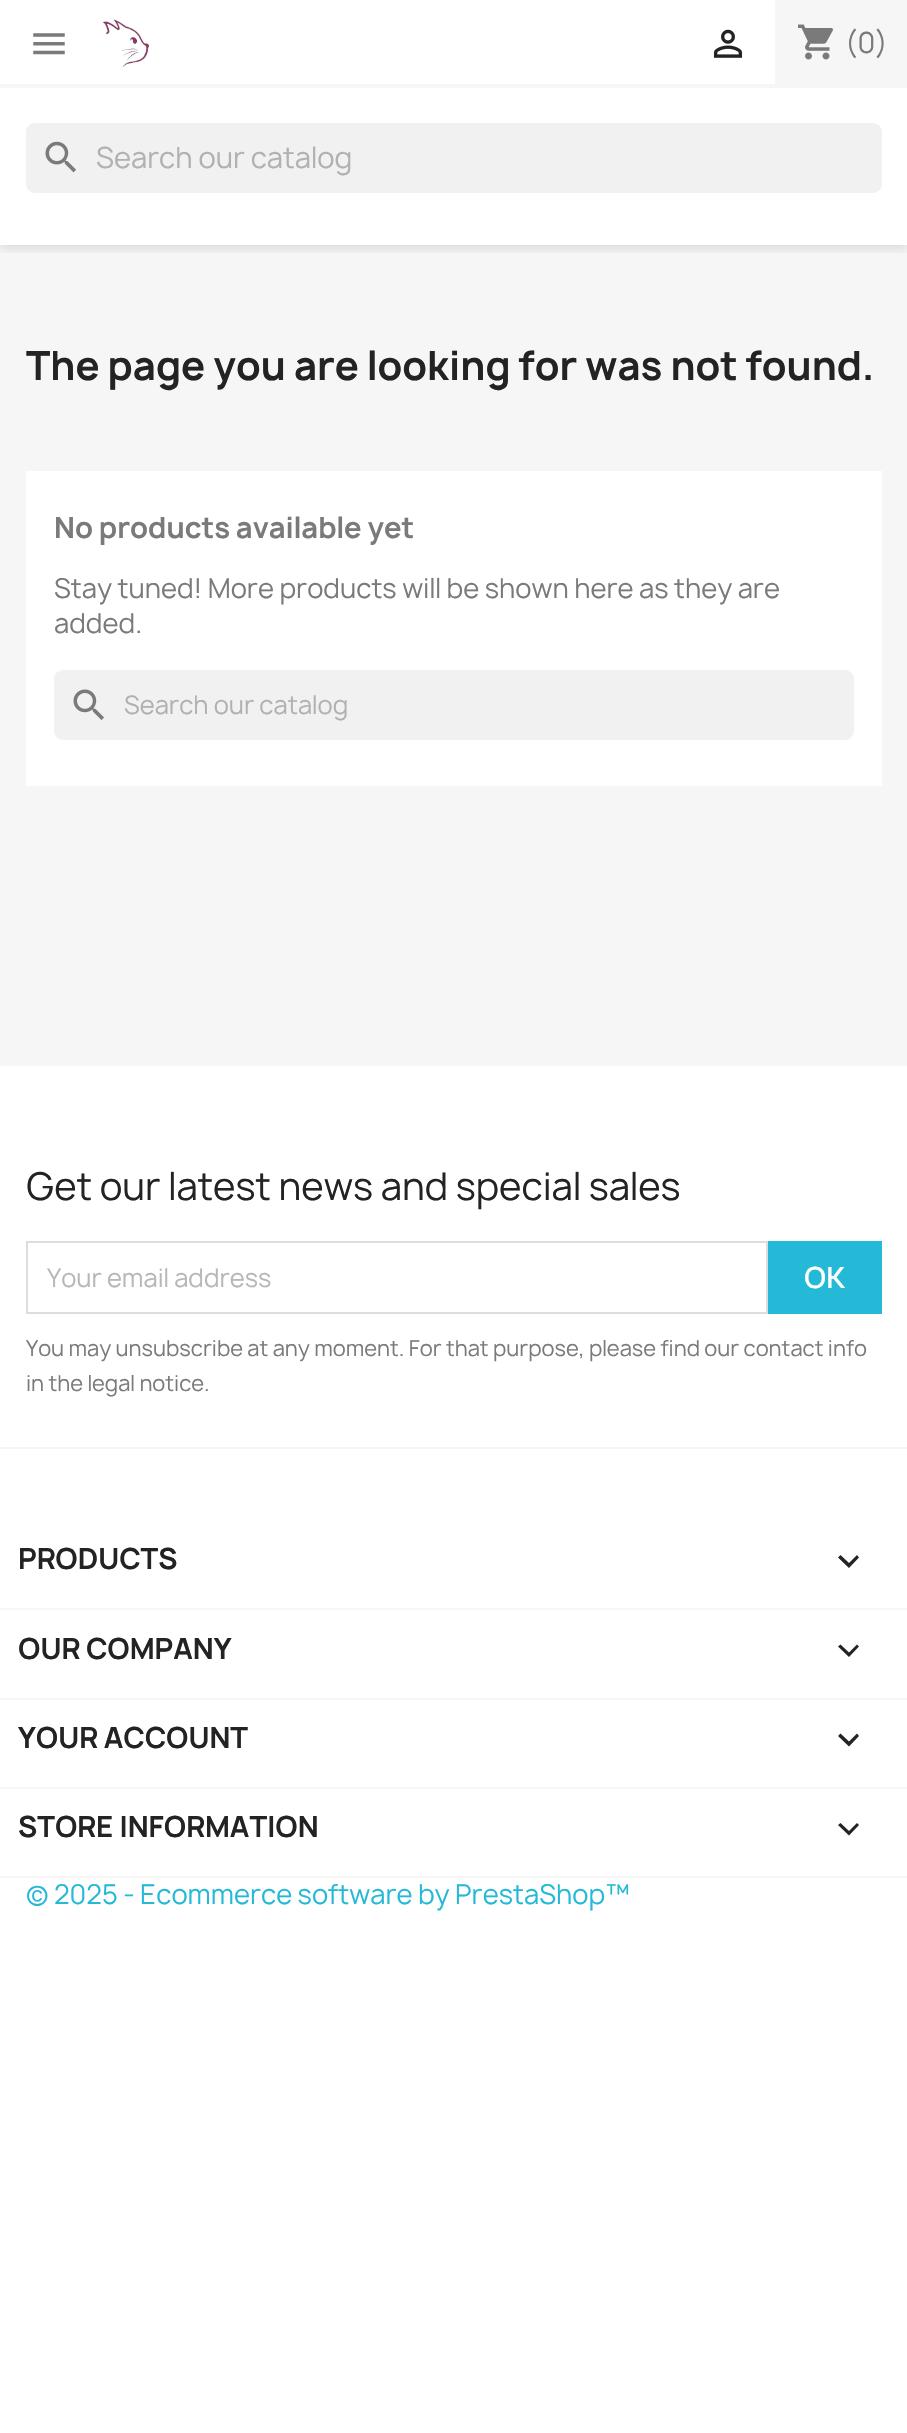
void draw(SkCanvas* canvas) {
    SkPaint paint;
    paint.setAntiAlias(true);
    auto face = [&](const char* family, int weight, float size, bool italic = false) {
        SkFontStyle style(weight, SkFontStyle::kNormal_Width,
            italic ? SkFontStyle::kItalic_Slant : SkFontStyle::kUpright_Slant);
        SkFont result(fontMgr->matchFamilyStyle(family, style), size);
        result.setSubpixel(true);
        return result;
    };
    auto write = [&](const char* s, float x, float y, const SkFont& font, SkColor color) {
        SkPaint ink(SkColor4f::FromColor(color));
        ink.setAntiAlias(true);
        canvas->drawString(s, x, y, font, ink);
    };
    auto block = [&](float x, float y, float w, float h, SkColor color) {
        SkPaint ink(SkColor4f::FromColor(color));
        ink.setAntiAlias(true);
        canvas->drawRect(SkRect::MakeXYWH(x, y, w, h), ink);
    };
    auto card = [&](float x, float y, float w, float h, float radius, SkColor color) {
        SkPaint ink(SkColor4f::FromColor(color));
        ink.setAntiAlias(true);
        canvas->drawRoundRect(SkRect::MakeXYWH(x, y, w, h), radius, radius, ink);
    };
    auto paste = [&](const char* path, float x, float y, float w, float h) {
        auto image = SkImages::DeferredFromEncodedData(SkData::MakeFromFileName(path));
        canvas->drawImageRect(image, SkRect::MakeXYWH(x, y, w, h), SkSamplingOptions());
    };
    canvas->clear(SK_ColorWHITE);
    block(0, 245, 907, 821, SkColorSetRGB(246, 246, 246));
    canvas->save();
    canvas->clipRect(SkRect::MakeXYWH(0, 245, 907, 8));
    paint.setColor(SkColorSetARGB(28, 0, 0, 0));
    paint.setMaskFilter(SkMaskFilter::MakeBlur(kNormal_SkBlurStyle, 4.5f));
    canvas->drawRect(SkRect::MakeXYWH(0, 4, 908, 245), paint);
    paint.setMaskFilter(nullptr);
    canvas->restore();
    block(0, 84, 907, 4, SkColorSetRGB(246, 246, 246));
    paste("pic1.png", 33, 33, 32, 22);
    paste("pic2.png", 103, 19, 46, 49);
    paste("pic3.png", 713, 29, 30, 29);
    block(775, 0, 132, 84, SkColorSetRGB(246, 246, 246));
    paste("pic4.png", 798, 24, 35, 36);
    auto kFont1 = face("Manrope", 400, 28);
    write("(0)", 845, 53, kFont1, SkColorSetRGB(122, 122, 122));
    card(26, 123, 856, 70, 9, SkColorSetRGB(241, 241, 241));
    paste("pic5.png", 45, 141, 31, 32);
    write("Search our catalog", 96, 168, kFont1, SkColorSetRGB(177, 177, 177));
    auto kFont2 = face("Manrope", 700, 38.5f);
    write("The page you are looking for was not found.", 26, 380, kFont2, SkColorSetRGB(35, 35, 35));
    block(26, 471, 856, 315, SK_ColorWHITE);
    auto kFont3 = face("Manrope", 700, 28);
    write("No products available yet", 54, 538, kFont3, SkColorSetRGB(122, 122, 122));
    auto kFont4 = face("Manrope", 400, 26.25f);
    write("Stay tuned! More products will be shown here as they are", 54, 598, kFont4, SkColorSetRGB(122, 122, 122));
    write("added.", 54, 633, kFont4, SkColorSetRGB(122, 122, 122));
    card(54, 670, 800, 70, 9, SkColorSetRGB(241, 241, 241));
    paste("pic6.png", 73, 689, 31, 31);
    auto kFont5 = face("Manrope", 400, 24.5f);
    write("Search our catalog", 124, 714, kFont5, SkColorSetRGB(177, 177, 177));
    block(0, 1447, 907, 2, SkColorSetRGB(246, 246, 246));
    auto kFont6 = face("Manrope", 400, 36.75f);
    write("Get our latest news and special sales", 26, 1200, kFont6, SkColorSetRGB(35, 35, 35));
    paint.setStyle(SkPaint::kStroke_Style);
    paint.setStrokeWidth(2);
    paint.setColor(SkColorSetRGB(221, 221, 221));
    canvas->drawRect(SkRect::MakeXYWH(27, 1242, 740, 71), paint);
    write("Your email address", 47, 1287, kFont5, SkColorSetRGB(183, 183, 183));
    block(768, 1241, 114, 73, SkColorSetRGB(36, 185, 215));
    auto kFont7 = face("Manrope", 600, 28);
    write("OK", 804, 1288, kFont7, SK_ColorWHITE);
    auto kFont8 = face("Manrope", 400, 21);
    write("You may unsubscribe at any moment. For that purpose, please find our contact info", 26, 1356, kFont8, SkColorSetRGB(122, 122, 122));
    write("in the legal notice.", 26, 1391, kFont8, SkColorSetRGB(122, 122, 122));
    block(0, 1608, 907, 2, SkColorSetRGB(246, 246, 246));
    write("PRODUCTS", 18, 1569, kFont3, SkColorSetRGB(35, 35, 35));
    paint.setStyle(SkPaint::kFill_Style);
    paint.setColor(SkColorSetRGB(35, 35, 35));
    canvas->drawPath(SkPathBuilder().moveTo(840.5f, 1555).lineTo(849, 1563).lineTo(857, 1555).lineTo(859, 1557.5f).lineTo(849, 1568).lineTo(838, 1557.5f).close().detach(), paint);
    block(0, 1698, 907, 2, SkColorSetRGB(246, 246, 246));
    write("OUR COMPANY", 18, 1659, kFont3, SkColorSetRGB(35, 35, 35));
    canvas->drawPath(SkPathBuilder().moveTo(840.5f, 1644.5f).lineTo(849, 1652.5f).lineTo(857, 1644.5f).lineTo(859, 1646.5f).lineTo(849, 1657).lineTo(838, 1646.5f).close().detach(), paint);
    block(0, 1787, 907, 2, SkColorSetRGB(246, 246, 246));
    write("YOUR ACCOUNT", 18, 1748, kFont3, SkColorSetRGB(35, 35, 35));
    canvas->drawPath(SkPathBuilder().moveTo(840.5f, 1733.5f).lineTo(849, 1741.5f).lineTo(857, 1733.5f).lineTo(859, 1736).lineTo(849, 1746.5f).lineTo(838, 1736).close().detach(), paint);
    block(0, 1876, 907, 2, SkColorSetRGB(246, 246, 246));
    write("STORE INFORMATION", 18, 1837, kFont3, SkColorSetRGB(35, 35, 35));
    canvas->drawPath(SkPathBuilder().moveTo(840.5f, 1823).lineTo(849, 1831).lineTo(857, 1823).lineTo(859, 1825).lineTo(849, 1835.5f).lineTo(838, 1825).close().detach(), paint);
    write("© 2025 - Ecommerce software by PrestaShop™", 26, 1904, kFont4, SkColorSetRGB(36, 185, 215));
}
